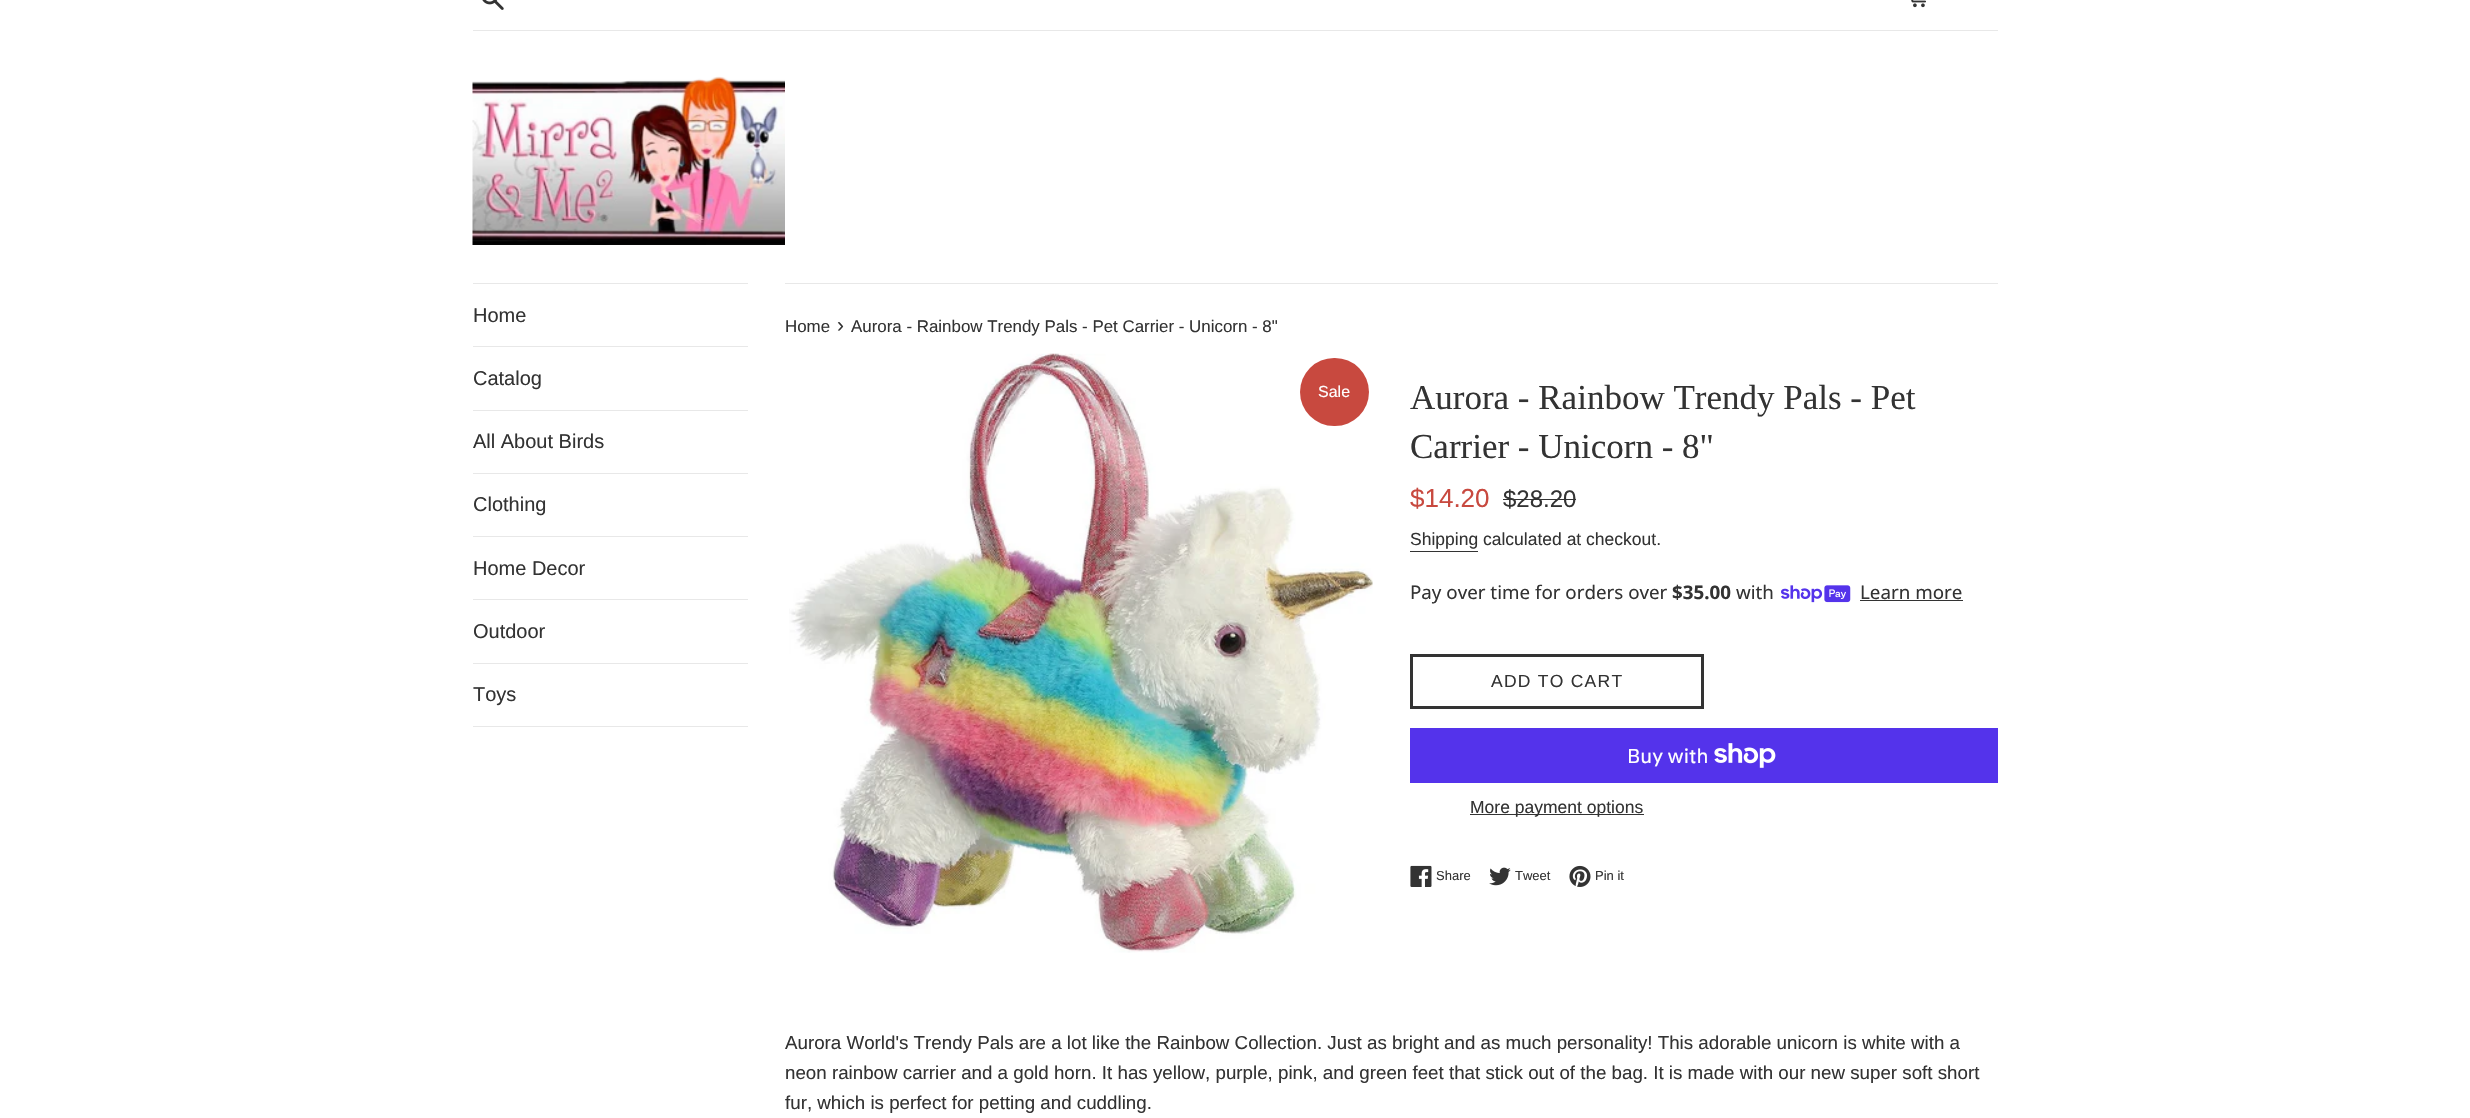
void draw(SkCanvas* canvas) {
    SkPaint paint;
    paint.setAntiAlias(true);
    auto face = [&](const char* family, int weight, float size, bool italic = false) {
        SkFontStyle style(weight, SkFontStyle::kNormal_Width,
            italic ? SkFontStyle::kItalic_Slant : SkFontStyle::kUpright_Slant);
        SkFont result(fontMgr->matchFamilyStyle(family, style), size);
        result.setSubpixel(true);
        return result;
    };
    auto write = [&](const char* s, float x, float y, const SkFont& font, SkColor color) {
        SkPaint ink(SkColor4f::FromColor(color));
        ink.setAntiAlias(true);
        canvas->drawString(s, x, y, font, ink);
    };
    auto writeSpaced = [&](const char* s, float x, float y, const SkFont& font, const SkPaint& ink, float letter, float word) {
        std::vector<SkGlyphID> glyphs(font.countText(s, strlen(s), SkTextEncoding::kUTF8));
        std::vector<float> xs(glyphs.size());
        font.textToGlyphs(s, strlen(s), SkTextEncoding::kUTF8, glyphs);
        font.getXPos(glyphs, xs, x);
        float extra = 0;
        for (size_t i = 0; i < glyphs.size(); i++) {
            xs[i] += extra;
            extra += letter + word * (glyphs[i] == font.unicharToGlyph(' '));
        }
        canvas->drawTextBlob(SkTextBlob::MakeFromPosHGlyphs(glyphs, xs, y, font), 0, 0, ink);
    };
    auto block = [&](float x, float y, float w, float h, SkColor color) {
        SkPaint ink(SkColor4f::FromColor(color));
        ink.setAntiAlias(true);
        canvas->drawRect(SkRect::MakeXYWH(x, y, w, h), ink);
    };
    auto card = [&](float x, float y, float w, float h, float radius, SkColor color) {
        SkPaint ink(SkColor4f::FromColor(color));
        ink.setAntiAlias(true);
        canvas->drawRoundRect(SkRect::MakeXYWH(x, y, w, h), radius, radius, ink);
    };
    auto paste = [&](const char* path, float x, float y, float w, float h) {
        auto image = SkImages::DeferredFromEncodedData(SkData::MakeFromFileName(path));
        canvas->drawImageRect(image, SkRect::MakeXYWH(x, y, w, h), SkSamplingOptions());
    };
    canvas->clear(SK_ColorWHITE);
    paste("pic1.png", 482, 0, 22, 10);
    paste("pic2.png", 1911, 0, 15, 8);
    block(473, 30, 1525, 1, SkColorSetRGB(232, 232, 232));
    paste("pic3.png", 472, 76, 313, 169);
    block(473, 283, 275, 1, SkColorSetRGB(232, 232, 232));
    block(473, 346, 275, 1, SkColorSetRGB(232, 232, 232));
    auto kFont1 = face("Liberation Sans", 400, 20);
    write("Home", 473, 322, kFont1, SkColorSetRGB(51, 51, 51));
    block(473, 410, 275, 1, SkColorSetRGB(232, 232, 232));
    write("Catalog", 473, 385, kFont1, SkColorSetRGB(51, 51, 51));
    block(473, 473, 275, 1, SkColorSetRGB(232, 232, 232));
    write("All About Birds", 473, 448, kFont1, SkColorSetRGB(51, 51, 51));
    block(473, 536, 275, 1, SkColorSetRGB(232, 232, 232));
    write("Clothing", 473, 511, kFont1, SkColorSetRGB(51, 51, 51));
    block(473, 599, 275, 1, SkColorSetRGB(232, 232, 232));
    write("Home Decor", 473, 575, kFont1, SkColorSetRGB(51, 51, 51));
    block(473, 663, 275, 1, SkColorSetRGB(232, 232, 232));
    write("Outdoor", 473, 638, kFont1, SkColorSetRGB(51, 51, 51));
    block(473, 726, 275, 1, SkColorSetRGB(232, 232, 232));
    write("Toys", 473, 701, kFont1, SkColorSetRGB(51, 51, 51));
    block(785, 283, 1213, 1, SkColorSetRGB(232, 232, 232));
    auto kFont2 = face("Liberation Sans", 400, 16.9f);
    write("Home", 785, 332, kFont2, SkColorSetRGB(51, 51, 51));
    auto kFont3 = face("Liberation Sans", 400, 21);
    write("›", 837, 332, kFont3, SkColorSetRGB(51, 51, 51));
    write("Aurora - Rainbow Trendy Pals - Pet Carrier - Unicorn - 8\"", 851, 332, kFont2, SkColorSetRGB(51, 51, 51));
    paste("pic4.png", 789, 353, 584, 600);
    card(1300, 358, 69, 68, 34, SkColorSetRGB(200, 73, 63));
    auto kFont4 = face("Liberation Sans", 400, 16);
    write("Sale", 1318, 397, kFont4, SK_ColorWHITE);
    auto kFont5 = face("Liberation Serif", 400, 35);
    write("Aurora - Rainbow Trendy Pals - Pet", 1410, 409, kFont5, SkColorSetRGB(51, 51, 51));
    write("Carrier - Unicorn - 8\"", 1410, 458, kFont5, SkColorSetRGB(51, 51, 51));
    auto kFont6 = face("Liberation Sans", 400, 26);
    write("$14.20", 1410, 507, kFont6, SkColorSetRGB(200, 73, 63));
    auto kFont7 = face("Liberation Sans", 400, 24);
    write("$28.20", 1503, 507, kFont7, SkColorSetRGB(51, 51, 51));
    block(1503, 499, 73, 1, SkColorSetRGB(51, 51, 51));
    auto kFont8 = face("Liberation Sans", 400, 17.5f);
    write("Shipping calculated at checkout.", 1410, 545, kFont8, SkColorSetRGB(51, 51, 51));
    block(1410, 551, 68, 1, SkColorSetRGB(51, 51, 51));
    auto kFont9 = face("Noto Sans", 400, 18.75f);
    write("Pay over time for orders over", 1410, 599, kFont9, SkColorSetRGB(51, 51, 51));
    auto kFont10 = face("Noto Sans", 700, 18.75f);
    write("$35.00", 1672, 599, kFont10, SkColorSetRGB(51, 51, 51));
    write("with", 1736, 599, kFont9, SkColorSetRGB(51, 51, 51));
    paste("pic5.png", 1781, 585, 70, 18);
    write("Learn more", 1860, 599, kFont9, SkColorSetRGB(51, 51, 51));
    block(1860, 600, 103, 1, SkColorSetRGB(51, 51, 51));
    paint.setStyle(SkPaint::kStroke_Style);
    paint.setStrokeWidth(3);
    paint.setColor(SkColorSetRGB(51, 51, 51));
    canvas->drawRect(SkRect::MakeXYWH(1411.5f, 655.5f, 291, 52), paint);
    paint.setStyle(SkPaint::kFill_Style);
    writeSpaced("ADD TO CART", 1491, 687, kFont8, paint, 1.25f, 0);
    block(1410, 728, 588, 55, SkColorSetRGB(84, 51, 235));
    auto kFont11 = face("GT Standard", 400, 20);
    write("Buy with", 1627, 763, kFont11, SK_ColorWHITE);
    paste("pic6.png", 1714, 743, 62, 25);
    block(1470, 814, 174, 1, SkColorSetRGB(51, 51, 51));
    write("More payment options", 1470, 813, kFont8, SkColorSetRGB(51, 51, 51));
    paste("pic7.png", 1410, 865, 22, 22);
    auto kFont12 = face("Liberation Sans", 400, 13);
    write("Share", 1436, 880, kFont12, SkColorSetRGB(51, 51, 51));
    paste("pic8.png", 1489, 867, 22, 19);
    write("Tweet", 1515, 880, kFont12, SkColorSetRGB(51, 51, 51));
    paste("pic9.png", 1569, 865, 22, 22);
    write("Pin it", 1595, 880, kFont12, SkColorSetRGB(51, 51, 51));
    auto kFont13 = face("Liberation Sans", 400, 18.75f);
    write("Aurora World's Trendy Pals are a lot like the Rainbow Collection. Just as bright and as much personality! This adorable unicorn is white with a", 785, 1049, kFont13, SkColorSetRGB(51, 51, 51));
    write("neon rainbow carrier and a gold horn. It has yellow, purple, pink, and green feet that stick out of the bag. It is made with our new super soft short", 785, 1079, kFont13, SkColorSetRGB(51, 51, 51));
    write("fur, which is perfect for petting and cuddling.", 785, 1109, kFont13, SkColorSetRGB(51, 51, 51));
}
